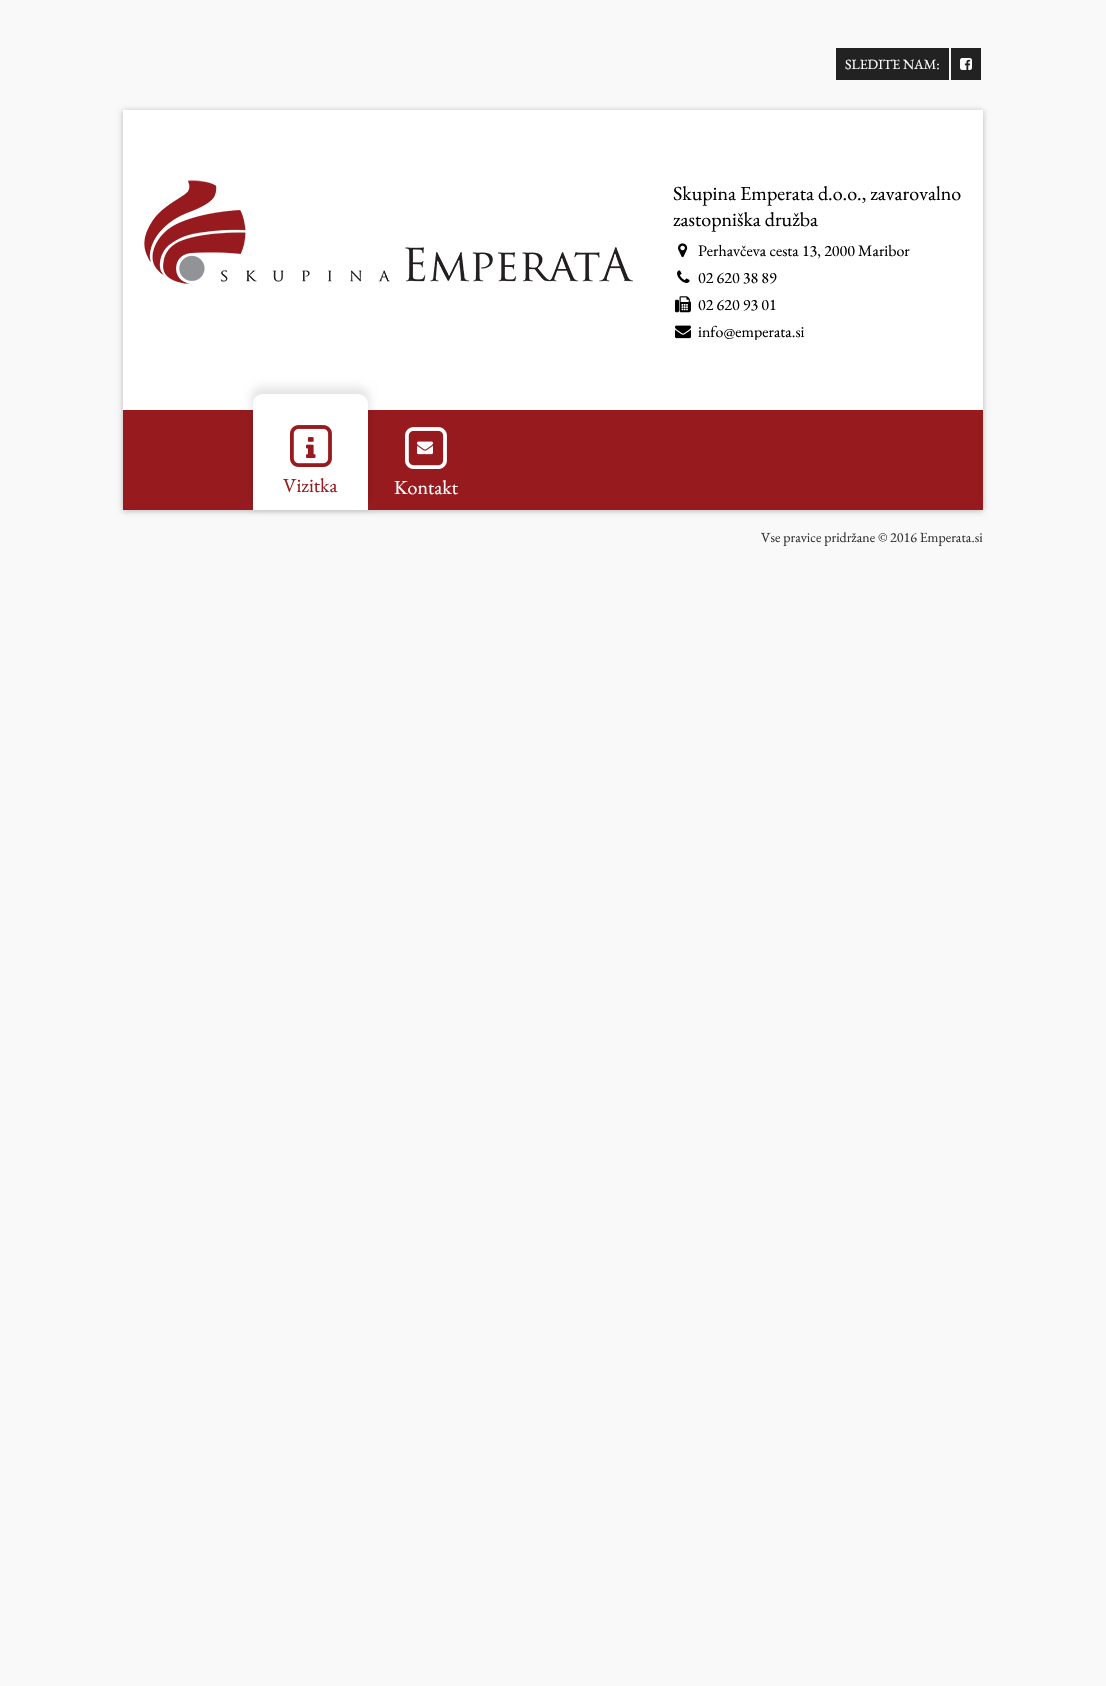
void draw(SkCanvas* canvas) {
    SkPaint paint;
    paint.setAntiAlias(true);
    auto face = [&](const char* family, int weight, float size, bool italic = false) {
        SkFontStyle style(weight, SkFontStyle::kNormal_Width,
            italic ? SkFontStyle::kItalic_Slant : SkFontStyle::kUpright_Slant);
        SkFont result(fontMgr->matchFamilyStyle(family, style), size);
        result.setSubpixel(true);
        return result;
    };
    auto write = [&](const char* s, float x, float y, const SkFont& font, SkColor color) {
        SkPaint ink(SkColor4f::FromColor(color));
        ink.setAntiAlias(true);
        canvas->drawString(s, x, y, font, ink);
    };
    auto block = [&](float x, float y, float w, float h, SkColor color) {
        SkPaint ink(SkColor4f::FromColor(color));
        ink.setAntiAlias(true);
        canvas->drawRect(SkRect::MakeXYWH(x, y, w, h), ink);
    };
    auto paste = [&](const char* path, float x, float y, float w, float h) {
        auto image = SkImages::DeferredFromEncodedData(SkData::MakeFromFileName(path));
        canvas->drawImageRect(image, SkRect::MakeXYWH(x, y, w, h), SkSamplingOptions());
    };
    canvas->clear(SkColorSetRGB(249, 249, 249));
    block(836, 48, 113, 32, SkColorSetRGB(34, 34, 34));
    auto kFont1 = face("EB Garamond", 400, 14);
    write("SLEDITE NAM:", 845, 69, kFont1, SK_ColorWHITE);
    block(951, 48, 30, 32, SkColorSetRGB(34, 34, 34));
    paste("pic1.png", 960, 58, 12, 12);
    paint.setColor(SkColorSetARGB(69, 0, 0, 0));
    paint.setMaskFilter(SkMaskFilter::MakeBlur(kNormal_SkBlurStyle, 3));
    canvas->drawRect(SkRect::MakeXYWH(123, 111, 860, 400), paint);
    paint.setMaskFilter(nullptr);
    block(123, 110, 860, 300, SK_ColorWHITE);
    paste("pic2.png", 144, 180, 489, 104);
    auto kFont2 = face("EB Garamond", 400, 20);
    write("Skupina Emperata d.o.o., zavarovalno", 673, 200, kFont2, SK_ColorBLACK);
    write("zastopniška družba", 673, 226, kFont2, SK_ColorBLACK);
    paste("pic3.png", 678, 243, 10, 15);
    auto kFont3 = face("EB Garamond", 400, 16);
    write("Perhavčeva cesta 13, 2000 Maribor", 698, 256, kFont3, SK_ColorBLACK);
    paste("pic4.png", 677, 270, 13, 13);
    write("02 620 38 89", 698, 283, kFont3, SK_ColorBLACK);
    paste("pic5.png", 675, 296, 16, 17);
    write("02 620 93 01", 698, 310, kFont3, SK_ColorBLACK);
    paste("pic6.png", 675, 325, 16, 14);
    canvas->save();
    canvas->clipRect(SkRect::MakeXYWH(673, 323, 310, 17));
    write("info@emperata.si", 698, 337, kFont3, SK_ColorBLACK);
    canvas->restore();
    block(123, 410, 860, 100, SkColorSetRGB(151, 27, 30));
    paint.setColor(SkColorSetARGB(26, 0, 0, 0));
    paint.setMaskFilter(SkMaskFilter::MakeBlur(kNormal_SkBlurStyle, 4));
    canvas->drawRoundRect(SkRect::MakeXYWH(251, 387, 119, 120), 12, 12, paint);
    paint.setMaskFilter(nullptr);
    paint.setColor(SK_ColorWHITE);
    canvas->drawPath(SkPathBuilder().moveTo(263, 394).lineTo(358, 394).cubicTo(363.5f, 394, 368, 398.5f, 368, 404).lineTo(368, 510).lineTo(253, 510).lineTo(253, 404).cubicTo(253, 398.5f, 257.5f, 394, 263, 394).close().detach(), paint);
    paste("pic7.png", 290, 425, 42, 42);
    paste("pic8.png", 306, 437, 10, 21);
    write("Vizitka", 283, 492, kFont2, SkColorSetRGB(151, 27, 30));
    paste("pic9.png", 405, 427, 42, 42);
    paste("pic10.png", 417, 441, 16, 14);
    write("Kontakt", 394, 494, kFont2, SK_ColorWHITE);
    write("Vse pravice pridržane © 2016 Emperata.si", 761, 542, kFont1, SkColorSetRGB(51, 51, 51));
}
